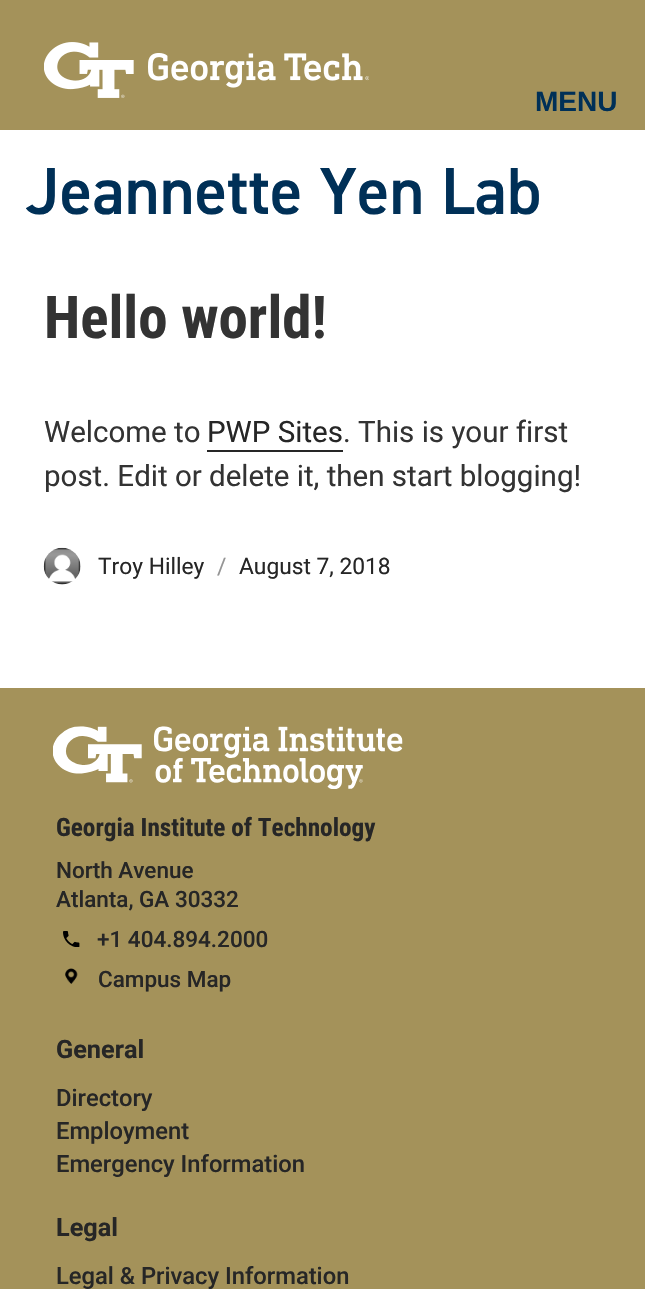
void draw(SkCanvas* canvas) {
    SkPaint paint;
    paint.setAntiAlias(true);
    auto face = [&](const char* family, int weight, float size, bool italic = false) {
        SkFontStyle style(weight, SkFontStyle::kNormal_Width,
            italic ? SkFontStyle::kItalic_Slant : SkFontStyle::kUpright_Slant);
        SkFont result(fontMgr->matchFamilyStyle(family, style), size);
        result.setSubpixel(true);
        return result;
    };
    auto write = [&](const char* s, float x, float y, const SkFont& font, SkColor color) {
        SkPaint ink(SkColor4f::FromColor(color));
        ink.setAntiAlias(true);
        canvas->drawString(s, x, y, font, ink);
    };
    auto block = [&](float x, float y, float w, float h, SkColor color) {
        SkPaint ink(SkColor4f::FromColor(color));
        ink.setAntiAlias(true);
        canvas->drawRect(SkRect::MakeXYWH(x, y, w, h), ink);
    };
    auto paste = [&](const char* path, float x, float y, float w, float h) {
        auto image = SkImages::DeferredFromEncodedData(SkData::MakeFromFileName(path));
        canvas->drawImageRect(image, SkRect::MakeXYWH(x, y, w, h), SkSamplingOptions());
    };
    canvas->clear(SK_ColorWHITE);
    block(0, 0, 645, 130, SkColorSetRGB(164, 146, 90));
    paste("pic1.png", 44, 42, 325, 56);
    auto kFont1 = face("Liberation Sans", 700, 28);
    write("MENU", 535, 111, kFont1, SkColorSetRGB(0, 48, 87));
    auto kFont2 = face("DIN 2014", 600, 66.5f);
    write("Jeannette Yen Lab", 26, 214, kFont2, SkColorSetRGB(0, 48, 87));
    auto kFont3 = face("Roboto Condensed", 700, 59);
    write("Hello world!", 44, 338, kFont3, SkColorSetRGB(51, 51, 51));
    auto kFont4 = face("Roboto", 400, 29.5f);
    write("Welcome to", 44, 442, kFont4, SkColorSetRGB(51, 51, 51));
    write("PWP Sites", 207, 442, kFont4, SkColorSetRGB(38, 38, 38));
    block(207, 450, 136, 2, SkColorSetRGB(38, 38, 38));
    write(". This is your first", 343, 442, kFont4, SkColorSetRGB(51, 51, 51));
    write("post. Edit or delete it, then start blogging!", 44, 486, kFont4, SkColorSetRGB(51, 51, 51));
    paste("pic2.png", 43, 547, 38, 38);
    auto kFont5 = face("Roboto", 400, 22.75f);
    write("Troy Hilley", 98, 574, kFont5, SkColorSetRGB(38, 38, 38));
    write("/", 217, 574, kFont5, SkColorSetRGB(149, 149, 149));
    write("August 7, 2018", 239, 574, kFont5, SkColorSetRGB(38, 38, 38));
    block(0, 688, 645, 601, SkColorSetRGB(164, 146, 90));
    paste("pic3.png", 53, 726, 350, 63);
    auto kFont6 = face("Roboto Condensed", 700, 25.25f);
    write("Georgia Institute of Technology", 56, 836, kFont6, SkColorSetRGB(38, 38, 38));
    auto kFont7 = face("Roboto", 500, 22.5f);
    write("North Avenue", 56, 878, kFont7, SkColorSetRGB(38, 38, 38));
    write("Atlanta, GA 30332", 56, 907, kFont7, SkColorSetRGB(38, 38, 38));
    paste("pic4.png", 63, 931, 17, 16);
    write("+1 404.894.2000", 97, 947, kFont7, SkColorSetRGB(38, 38, 38));
    paste("pic5.png", 65, 968, 13, 16);
    write("Campus Map", 98, 987, kFont7, SkColorSetRGB(38, 38, 38));
    auto kFont8 = face("Roboto", 700, 25.25f);
    write("General", 56, 1058, kFont8, SkColorSetRGB(38, 38, 38));
    auto kFont9 = face("Roboto", 500, 23.75f);
    write("Directory", 56, 1106, kFont9, SkColorSetRGB(38, 38, 38));
    write("Employment", 56, 1139, kFont9, SkColorSetRGB(38, 38, 38));
    write("Emergency Information", 56, 1172, kFont9, SkColorSetRGB(38, 38, 38));
    write("Legal", 56, 1236, kFont8, SkColorSetRGB(38, 38, 38));
    write("Legal & Privacy Information", 56, 1284, kFont9, SkColorSetRGB(38, 38, 38));
}
